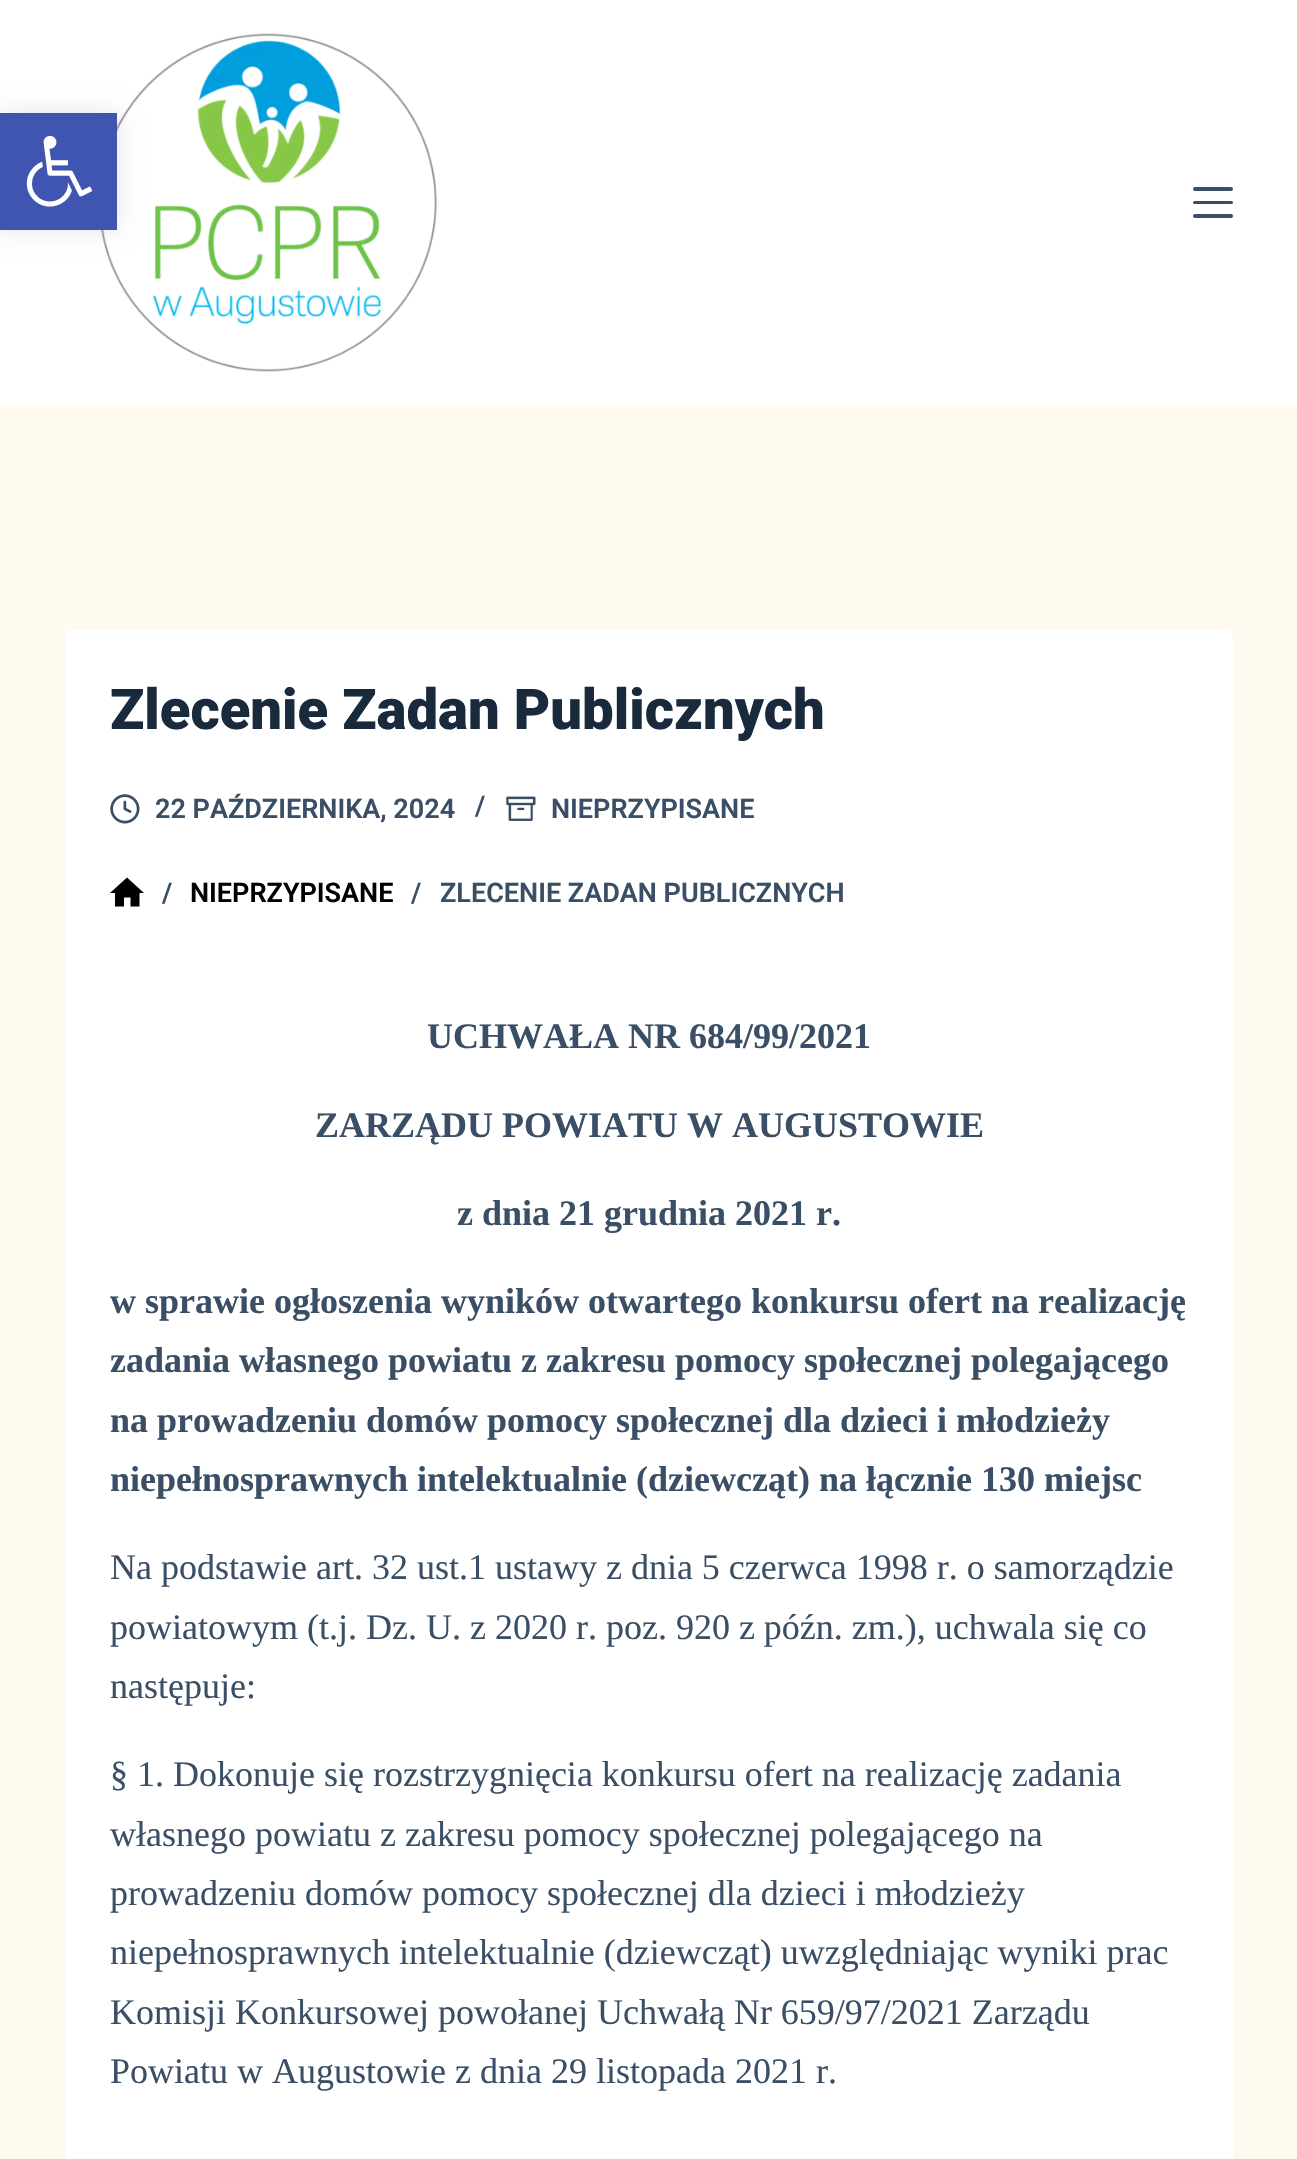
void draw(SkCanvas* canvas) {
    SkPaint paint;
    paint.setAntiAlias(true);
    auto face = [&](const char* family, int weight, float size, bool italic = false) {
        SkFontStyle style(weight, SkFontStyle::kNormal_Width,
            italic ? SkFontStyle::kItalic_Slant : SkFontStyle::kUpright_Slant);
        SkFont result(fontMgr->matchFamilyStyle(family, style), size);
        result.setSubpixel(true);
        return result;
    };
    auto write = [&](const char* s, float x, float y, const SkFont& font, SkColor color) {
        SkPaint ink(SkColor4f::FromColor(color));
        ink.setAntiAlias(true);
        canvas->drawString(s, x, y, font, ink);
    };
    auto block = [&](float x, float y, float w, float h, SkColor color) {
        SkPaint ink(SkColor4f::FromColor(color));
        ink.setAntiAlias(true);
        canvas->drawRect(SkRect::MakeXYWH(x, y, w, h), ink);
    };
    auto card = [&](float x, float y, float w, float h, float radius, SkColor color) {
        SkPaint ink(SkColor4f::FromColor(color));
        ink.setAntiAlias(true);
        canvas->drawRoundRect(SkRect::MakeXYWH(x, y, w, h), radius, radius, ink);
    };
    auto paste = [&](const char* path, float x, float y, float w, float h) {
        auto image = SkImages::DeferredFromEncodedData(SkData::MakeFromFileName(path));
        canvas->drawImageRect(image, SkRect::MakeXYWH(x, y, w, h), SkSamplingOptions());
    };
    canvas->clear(SkColorSetRGB(255, 250, 240));
    block(0, 0, 1297, 405, SK_ColorWHITE);
    paste("pic2.png", 100, 33, 337, 339);
    paint.setColor(SkColorSetARGB(26, 0, 0, 0));
    paint.setMaskFilter(SkMaskFilter::MakeBlur(kNormal_SkBlurStyle, 11));
    canvas->drawRect(SkRect::MakeXYWH(0, 113, 117, 117), paint);
    paint.setMaskFilter(nullptr);
    block(0, 113, 117, 117, SkColorSetRGB(64, 84, 178));
    paste("pic1.png", 26, 135, 67, 72);
    card(1193, 187, 40, 4, 2, SkColorSetRGB(58, 79, 102));
    card(1193, 201, 40, 3, 1.5f, SkColorSetRGB(58, 79, 102));
    card(1193, 214, 40, 4, 2, SkColorSetRGB(58, 79, 102));
    card(65, 630, 1168, 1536, 7, SK_ColorWHITE);
    auto kFont1 = face("Roboto", 900, 56.25f);
    write("Zlecenie Zadan Publicznych", 110, 729, kFont1, SkColorSetRGB(25, 42, 61));
    paste("pic3.png", 110, 794, 30, 30);
    auto kFont2 = face("Roboto", 600, 27);
    write("22 PAŹDZIERNIKA, 2024", 155, 818, kFont2, SkColorSetRGB(58, 79, 102));
    write("/", 475, 815, kFont2, SkColorSetRGB(58, 79, 102));
    paste("pic4.png", 506, 796, 30, 25);
    write("NIEPRZYPISANE", 551, 818, kFont2, SkColorSetRGB(58, 79, 102));
    paint.setColor(SK_ColorBLACK);
    canvas->drawPath(SkPathBuilder().moveTo(127, 877.5f).lineTo(110, 893).lineTo(115, 893).lineTo(115, 906.5f).lineTo(124, 906.5f).lineTo(124, 897.5f).lineTo(130.5f, 897.5f).lineTo(130.5f, 906.5f).lineTo(139.5f, 906.5f).lineTo(139.5f, 893).lineTo(144, 893).close().detach(), paint);
    write("/", 162, 902, kFont2, SkColorSetRGB(58, 79, 102));
    write("NIEPRZYPISANE", 190, 902, kFont2, SK_ColorBLACK);
    write("/", 411, 902, kFont2, SkColorSetRGB(58, 79, 102));
    write("ZLECENIE ZADAN PUBLICZNYCH", 440, 902, kFont2, SkColorSetRGB(58, 79, 102));
    auto kFont3 = face("Liberation Serif", 700, 36);
    write("UCHWAŁA NR 684/99/2021", 427, 1048, kFont3, SkColorSetRGB(58, 79, 102));
    write("ZARZĄDU POWIATU W AUGUSTOWIE", 315, 1137, kFont3, SkColorSetRGB(58, 79, 102));
    write("z dnia 21 grudnia 2021 r.", 457, 1225, kFont3, SkColorSetRGB(58, 79, 102));
    write("w sprawie ogłoszenia wyników otwartego konkursu ofert na realizację", 110, 1313, kFont3, SkColorSetRGB(58, 79, 102));
    write("zadania własnego powiatu z zakresu pomocy społecznej polegającego", 110, 1372, kFont3, SkColorSetRGB(58, 79, 102));
    write("na prowadzeniu domów pomocy społecznej dla dzieci i młodzieży", 110, 1432, kFont3, SkColorSetRGB(58, 79, 102));
    write("niepełnosprawnych intelektualnie (dziewcząt) na łącznie 130 miejsc", 110, 1491, kFont3, SkColorSetRGB(58, 79, 102));
    auto kFont4 = face("Liberation Serif", 400, 36);
    write("Na podstawie art. 32 ust.1 ustawy z dnia 5 czerwca 1998 r. o samorządzie", 110, 1579, kFont4, SkColorSetRGB(58, 79, 102));
    write("powiatowym (t.j. Dz. U. z 2020 r. poz. 920 z późn. zm.), uchwala się co", 110, 1639, kFont4, SkColorSetRGB(58, 79, 102));
    write("następuje:", 110, 1698, kFont4, SkColorSetRGB(58, 79, 102));
    write("§ 1. Dokonuje się rozstrzygnięcia konkursu ofert na realizację zadania", 110, 1786, kFont4, SkColorSetRGB(58, 79, 102));
    write("własnego powiatu z zakresu pomocy społecznej polegającego na", 110, 1846, kFont4, SkColorSetRGB(58, 79, 102));
    write("prowadzeniu domów pomocy społecznej dla dzieci i młodzieży", 110, 1905, kFont4, SkColorSetRGB(58, 79, 102));
    write("niepełnosprawnych intelektualnie (dziewcząt) uwzględniając wyniki prac", 110, 1964, kFont4, SkColorSetRGB(58, 79, 102));
    write("Komisji Konkursowej powołanej Uchwałą Nr 659/97/2021 Zarządu", 110, 2024, kFont4, SkColorSetRGB(58, 79, 102));
    write("Powiatu w Augustowie z dnia 29 listopada 2021 r.", 110, 2083, kFont4, SkColorSetRGB(58, 79, 102));
}
